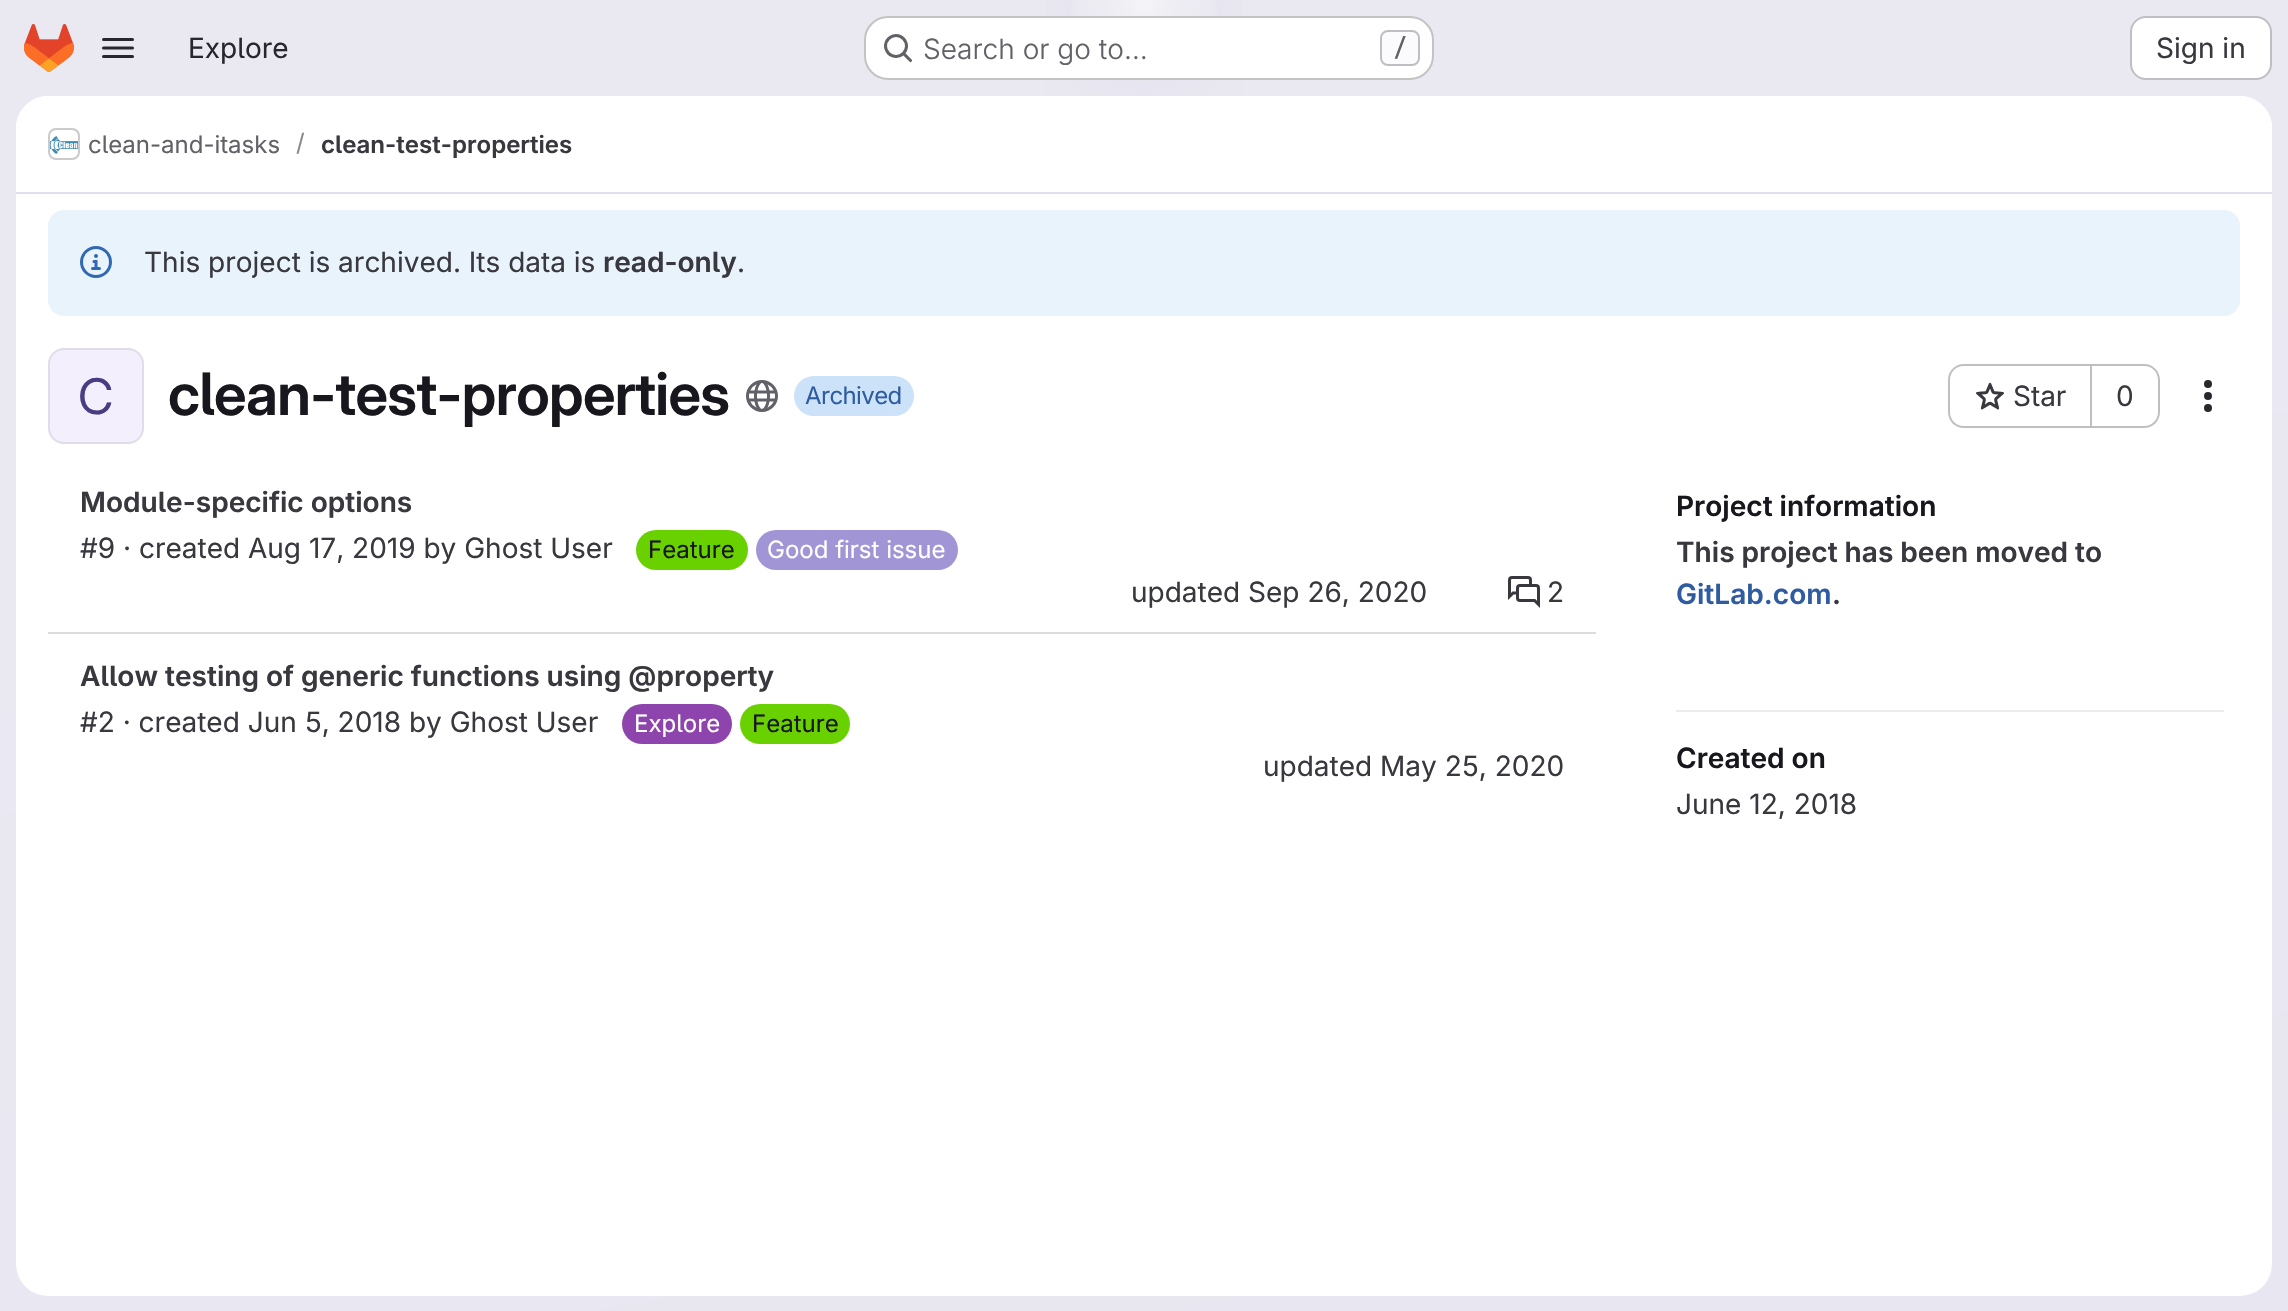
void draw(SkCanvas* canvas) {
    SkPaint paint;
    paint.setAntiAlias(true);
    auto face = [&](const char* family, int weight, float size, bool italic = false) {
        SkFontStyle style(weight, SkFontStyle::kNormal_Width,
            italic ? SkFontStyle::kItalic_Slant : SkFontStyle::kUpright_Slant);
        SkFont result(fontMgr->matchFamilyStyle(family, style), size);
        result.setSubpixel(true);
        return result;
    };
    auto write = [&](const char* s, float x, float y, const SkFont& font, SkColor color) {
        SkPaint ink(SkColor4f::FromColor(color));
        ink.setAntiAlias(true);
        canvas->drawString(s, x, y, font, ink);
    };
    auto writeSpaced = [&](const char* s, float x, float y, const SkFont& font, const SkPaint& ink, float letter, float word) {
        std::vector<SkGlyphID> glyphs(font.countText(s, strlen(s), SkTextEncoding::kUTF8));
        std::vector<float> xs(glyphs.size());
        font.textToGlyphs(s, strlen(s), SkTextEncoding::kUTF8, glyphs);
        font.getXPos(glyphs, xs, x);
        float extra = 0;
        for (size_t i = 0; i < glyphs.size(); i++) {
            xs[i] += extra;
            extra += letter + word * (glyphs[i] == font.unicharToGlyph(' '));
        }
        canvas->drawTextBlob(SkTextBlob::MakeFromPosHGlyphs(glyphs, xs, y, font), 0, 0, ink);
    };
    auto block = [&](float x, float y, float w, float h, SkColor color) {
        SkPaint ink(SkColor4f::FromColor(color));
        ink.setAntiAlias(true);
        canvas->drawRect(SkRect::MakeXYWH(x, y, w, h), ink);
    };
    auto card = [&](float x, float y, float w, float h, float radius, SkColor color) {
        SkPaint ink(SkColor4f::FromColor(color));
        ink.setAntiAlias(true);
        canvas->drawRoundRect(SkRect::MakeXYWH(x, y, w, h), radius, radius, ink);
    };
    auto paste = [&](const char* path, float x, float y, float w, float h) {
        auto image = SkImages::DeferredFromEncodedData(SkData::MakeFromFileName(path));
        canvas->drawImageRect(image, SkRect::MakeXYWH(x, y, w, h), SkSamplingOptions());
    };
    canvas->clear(SK_ColorWHITE);
    {
        const SkColor colors[] = {SkColorSetRGB(232, 230, 240), SkColorSetRGB(234, 233, 242)};
        const float stops[] = {0, 0.7f};
        const SkPoint ends[] = {{1291, 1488}, {997, -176}};
        paint.setShader(SkGradientShader::MakeLinear(ends, colors, stops, 2, SkTileMode::kClamp));
        paint.setAlpha(255);
    }
    canvas->drawRect(SkRect::MakeXYWH(0, 0, 2288, 1311), paint);
    {
        const SkColor colors[] = {SkColorSetRGB(228, 226, 237), SkColorSetARGB(0, 228, 226, 237)};
        const float stops[] = {0, 0.12f};
        SkMatrix m = SkMatrix::Translate(1144, 0).preScale(1144, 1312);
        paint.setShader(SkGradientShader::MakeRadial({0, 0}, 1, colors, stops, 2, SkTileMode::kClamp, 0, &m));
        paint.setAlpha(255);
    }
    canvas->drawRect(SkRect::MakeXYWH(1045, 0, 198, 96), paint);
    {
        const SkColor colors[] = {SkColorSetRGB(228, 226, 236), SkColorSetARGB(0, 228, 226, 236)};
        const float stops[] = {0, 0.09f};
        SkMatrix m = SkMatrix::Translate(1144, 0).preScale(1144, 1312);
        paint.setShader(SkGradientShader::MakeRadial({0, 0}, 1, colors, stops, 2, SkTileMode::kClamp, 0, &m));
        paint.setAlpha(255);
    }
    canvas->drawRect(SkRect::MakeXYWH(1103, 0, 84, 48), paint);
    {
        const SkColor colors[] = {SkColorSetARGB(153, 255, 255, 255), SkColorSetARGB(0, 255, 255, 255)};
        const float stops[] = {0, 0.05f};
        paint.setShader(SkGradientShader::MakeRadial({1144, 0}, 1741, colors, stops, 2, SkTileMode::kClamp));
        paint.setAlpha(255);
    }
    canvas->drawRect(SkRect::MakeXYWH(1072, 0, 144, 73), paint);
    paste("pic1.png", 24, 24, 50, 48);
    paste("pic2.png", 102, 38, 32, 20);
    auto kFont1 = face("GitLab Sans", 400, 28);
    write("Explore", 188, 58, kFont1, SkColorSetRGB(40, 39, 45));
    card(864, 16, 570, 64, 24, SK_ColorWHITE);
    paint.setStyle(SkPaint::kStroke_Style);
    paint.setStrokeWidth(2);
    paint.setShader(nullptr);
    paint.setColor(SkColorSetARGB(61, 5, 5, 6));
    canvas->drawRoundRect(SkRect::MakeXYWH(865, 17, 568, 62), 23, 23, paint);
    paste("pic3.png", 884, 34, 29, 29);
    auto kFont2 = face("GitLab Sans", 300, 28);
    write("Search or go to…", 923, 59, kFont2, SkColorSetRGB(98, 97, 104));
    paint.setStyle(SkPaint::kFill_Style);
    paint.setColor(SkColorSetRGB(251, 250, 253));
    canvas->drawRoundRect(SkRect::MakeXYWH(1381, 31, 38, 34), 7, 7, paint);
    paint.setStyle(SkPaint::kStroke_Style);
    paint.setColor(SkColorSetRGB(191, 191, 195));
    canvas->drawRoundRect(SkRect::MakeXYWH(1381, 31, 38, 34), 7, 7, paint);
    auto kFont3 = face("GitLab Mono", 500, 24);
    write("/", 1393, 56, kFont3, SkColorSetRGB(98, 97, 104));
    paint.setStyle(SkPaint::kFill_Style);
    paint.setColor(SK_ColorWHITE);
    canvas->drawRoundRect(SkRect::MakeXYWH(2131, 17, 140, 62), 15, 15, paint);
    paint.setStyle(SkPaint::kStroke_Style);
    paint.setColor(SkColorSetRGB(191, 191, 195));
    canvas->drawRoundRect(SkRect::MakeXYWH(2131, 17, 140, 62), 15, 15, paint);
    write("Sign in", 2156, 58, kFont1, SkColorSetRGB(58, 56, 63));
    card(16, 96, 2256, 1200, 32, SK_ColorWHITE);
    paint.setStyle(SkPaint::kFill_Style);
    paint.setColor(SK_ColorWHITE);
    canvas->drawPath(SkPathBuilder().moveTo(48, 96).lineTo(2240, 96).cubicTo(2257.5f, 96, 2272, 110.5f, 2272, 128).lineTo(2272, 194).lineTo(16, 194).lineTo(16, 128).cubicTo(16, 110.5f, 30.5f, 96, 48, 96).close().detach(), paint);
    block(16, 192, 2256, 2, SkColorSetRGB(225, 223, 236));
    paint.setStyle(SkPaint::kStroke_Style);
    paint.setColor(SkColorSetRGB(220, 220, 222));
    canvas->drawRoundRect(SkRect::MakeXYWH(49, 129, 30, 30), 7, 7, paint);
    paste("pic4.png", 50, 136, 28, 18);
    paint.setColor(SkColorSetARGB(20, 5, 5, 6));
    canvas->drawRoundRect(SkRect::MakeXYWH(49, 129, 30, 30), 7, 7, paint);
    auto kFont4 = face("GitLab Sans", 400, 24);
    write("clean-and-itasks", 88, 153, kFont4, SkColorSetRGB(98, 97, 104));
    write("/", 296, 151, kFont4, SkColorSetRGB(137, 136, 141));
    auto kFont5 = face("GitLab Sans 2", 600, 24);
    write("clean-test-properties", 321, 153, kFont5, SkColorSetRGB(58, 56, 63));
    card(48, 210, 2192, 106, 16, SkColorSetRGB(233, 243, 252));
    paste("pic5.png", 80, 246, 32, 32);
    write("This project is archived. Its data is", 144, 272, kFont1, SkColorSetRGB(58, 56, 63));
    auto kFont6 = face("GitLab Sans 2", 600, 28);
    write("read-only", 603, 272, kFont6, SkColorSetRGB(58, 56, 63));
    write(".", 737, 272, kFont1, SkColorSetRGB(58, 56, 63));
    card(48, 348, 96, 96, 16, SkColorSetRGB(243, 239, 252));
    canvas->drawRoundRect(SkRect::MakeXYWH(49, 349, 94, 94), 15, 15, paint);
    auto kFont7 = face("GitLab Sans 2", 400, 49);
    write("C", 78, 414, kFont7, SkColorSetRGB(73, 60, 131));
    auto kFont8 = face("GitLab Sans", 600, 58.5f);
    paint.setStyle(SkPaint::kFill_Style);
    paint.setColor(SkColorSetRGB(24, 23, 29));
    writeSpaced("clean-test-properties", 168, 415, kFont8, paint, -0.6f, 0);
    paste("pic6.png", 746, 380, 32, 32);
    card(794, 376, 120, 40, 20, SkColorSetRGB(203, 226, 249));
    paint.setColor(SkColorSetRGB(47, 92, 160));
    writeSpaced("Archived", 805, 404, kFont4, paint, -0.6f, 0);
    paint.setColor(SkColorSetRGB(191, 191, 195));
    canvas->drawPath(SkPathBuilder(SkPathFillType::kEvenOdd).moveTo(1964, 364).lineTo(2090, 364).lineTo(2090, 428).lineTo(1964, 428).cubicTo(1955, 428, 1948, 421, 1948, 412).lineTo(1948, 380).cubicTo(1948, 371, 1955, 364, 1964, 364).close().moveTo(1964, 366).lineTo(2090, 366).lineTo(2090, 426).lineTo(1964, 426).cubicTo(1956, 426, 1950, 420, 1950, 412).lineTo(1950, 380).cubicTo(1950, 372, 1956, 366, 1964, 366).close().detach(), paint);
    paste("pic7.png", 1976, 382, 28, 28);
    write("Star", 2013, 406, kFont1, SkColorSetRGB(58, 56, 63));
    canvas->drawPath(SkPathBuilder(SkPathFillType::kEvenOdd).moveTo(2092, 364).lineTo(2144, 364).cubicTo(2153, 364, 2160, 371, 2160, 380).lineTo(2160, 412).cubicTo(2160, 421, 2153, 428, 2144, 428).lineTo(2092, 428).close().moveTo(2092, 366).lineTo(2144, 366).cubicTo(2152, 366, 2158, 372, 2158, 380).lineTo(2158, 412).cubicTo(2158, 420, 2152, 426, 2144, 426).lineTo(2092, 426).close().detach(), paint);
    block(2090, 364, 2, 64, SkColorSetRGB(191, 191, 195));
    write("0", 2116, 406, kFont1, SkColorSetRGB(58, 56, 63));
    paste("pic8.png", 2204, 380, 8, 32);
    block(48, 632, 1548, 2, SkColorSetRGB(220, 220, 222));
    write("Module-specific options", 80, 512, kFont6, SkColorSetRGB(58, 56, 63));
    write("#9 · created Aug 17, 2019 by Ghost User", 80, 558, kFont1, SkColorSetRGB(58, 56, 63));
    card(636, 530, 112, 40, 20, SkColorSetRGB(105, 209, 0));
    write("Feature", 648, 558, kFont4, SkColorSetRGB(24, 23, 29));
    card(756, 530, 202, 40, 20, SkColorSetRGB(162, 149, 214));
    write("Good first issue", 767, 558, kFont4, SK_ColorWHITE);
    write("updated Sep 26, 2020", 1131, 602, kFont1, SkColorSetRGB(58, 56, 63));
    paste("pic9.png", 1508, 576, 32, 32);
    write("2", 1547, 602, kFont1, SkColorSetRGB(58, 56, 63));
    write("Allow testing of generic functions using @property", 80, 686, kFont6, SkColorSetRGB(58, 56, 63));
    write("#2 · created Jun 5, 2018 by Ghost User", 80, 732, kFont1, SkColorSetRGB(58, 56, 63));
    card(622, 704, 110, 40, 20, SkColorSetRGB(142, 68, 173));
    write("Explore", 634, 732, kFont4, SK_ColorWHITE);
    card(740, 704, 110, 40, 20, SkColorSetRGB(105, 209, 0));
    write("Feature", 752, 732, kFont4, SkColorSetRGB(24, 23, 29));
    write("updated May 25, 2020", 1263, 776, kFont1, SkColorSetRGB(58, 56, 63));
    block(1676, 710, 548, 2, SkColorSetRGB(236, 236, 239));
    write("Project information", 1676, 516, kFont6, SkColorSetRGB(24, 23, 29));
    write("This project has been moved to", 1676, 562, kFont6, SkColorSetRGB(58, 56, 63));
    write("GitLab.com", 1676, 604, kFont6, SkColorSetRGB(47, 92, 160));
    write(".", 1832, 604, kFont6, SkColorSetRGB(58, 56, 63));
    write("Created on", 1676, 768, kFont6, SkColorSetRGB(24, 23, 29));
    write("June 12, 2018", 1676, 814, kFont1, SkColorSetRGB(58, 56, 63));
}
